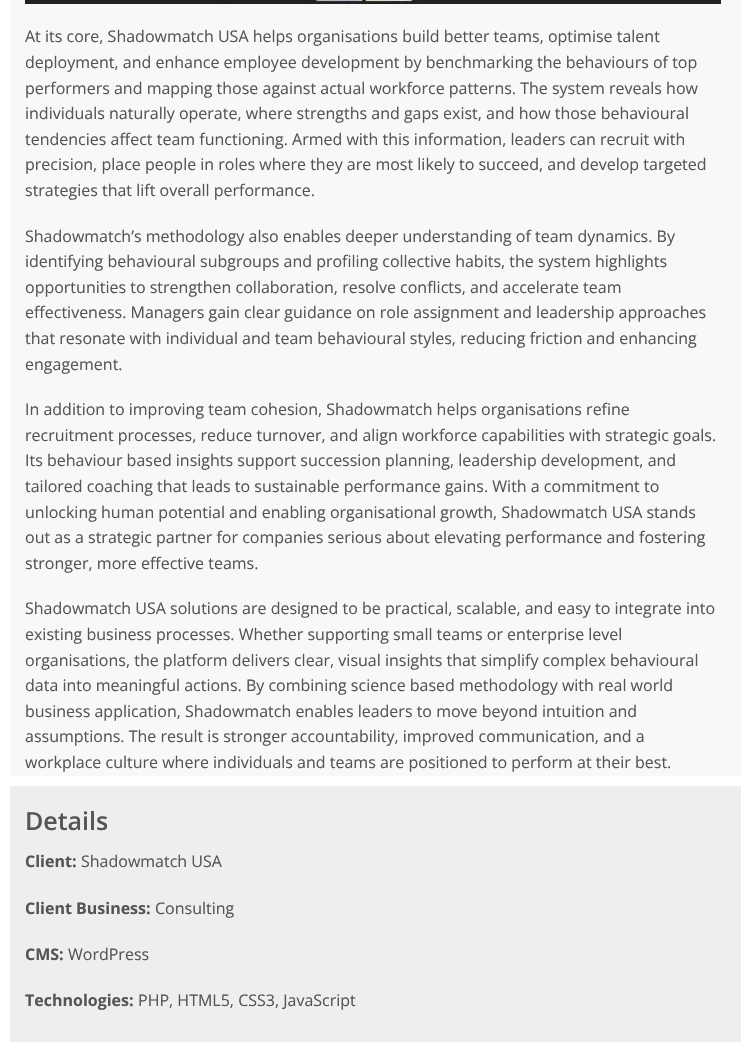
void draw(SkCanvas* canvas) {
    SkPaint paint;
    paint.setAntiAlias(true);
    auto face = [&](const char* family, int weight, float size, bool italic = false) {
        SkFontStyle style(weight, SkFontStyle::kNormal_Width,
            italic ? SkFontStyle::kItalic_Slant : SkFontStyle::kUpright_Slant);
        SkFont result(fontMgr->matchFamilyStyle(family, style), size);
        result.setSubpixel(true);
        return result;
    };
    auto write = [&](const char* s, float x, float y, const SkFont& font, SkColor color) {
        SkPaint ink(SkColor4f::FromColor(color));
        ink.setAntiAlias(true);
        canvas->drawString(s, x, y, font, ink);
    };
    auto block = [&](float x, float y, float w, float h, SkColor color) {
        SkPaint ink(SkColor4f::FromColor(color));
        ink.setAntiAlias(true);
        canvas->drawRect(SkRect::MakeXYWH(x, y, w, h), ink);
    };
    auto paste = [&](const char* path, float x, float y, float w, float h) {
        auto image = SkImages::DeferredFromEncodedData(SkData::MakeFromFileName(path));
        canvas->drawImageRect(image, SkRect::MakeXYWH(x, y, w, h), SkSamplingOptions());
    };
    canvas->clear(SK_ColorWHITE);
    block(10, 0, 731, 776, SkColorSetRGB(248, 248, 248));
    paste("pic1.png", 25, 0, 696, 4);
    auto kFont1 = face("Open Sans", 400, 16);
    write("At its core, Shadowmatch USA helps organisations build better teams, optimise talent", 25, 42, kFont1, SkColorSetRGB(85, 85, 85));
    write("deployment, and enhance employee development by benchmarking the behaviours of top", 25, 68, kFont1, SkColorSetRGB(85, 85, 85));
    write("performers and mapping those against actual workforce patterns. The system reveals how", 25, 94, kFont1, SkColorSetRGB(85, 85, 85));
    write("individuals naturally operate, where strengths and gaps exist, and how those behavioural", 25, 119, kFont1, SkColorSetRGB(85, 85, 85));
    write("tendencies affect team functioning. Armed with this information, leaders can recruit with", 25, 145, kFont1, SkColorSetRGB(85, 85, 85));
    write("precision, place people in roles where they are most likely to succeed, and develop targeted", 25, 170, kFont1, SkColorSetRGB(85, 85, 85));
    write("strategies that lift overall performance.", 25, 196, kFont1, SkColorSetRGB(85, 85, 85));
    write("Shadowmatch’s methodology also enables deeper understanding of team dynamics. By", 25, 242, kFont1, SkColorSetRGB(85, 85, 85));
    write("identifying behavioural subgroups and profiling collective habits, the system highlights", 25, 267, kFont1, SkColorSetRGB(85, 85, 85));
    write("opportunities to strengthen collaboration, resolve conflicts, and accelerate team", 25, 293, kFont1, SkColorSetRGB(85, 85, 85));
    write("effectiveness. Managers gain clear guidance on role assignment and leadership approaches", 25, 318, kFont1, SkColorSetRGB(85, 85, 85));
    write("that resonate with individual and team behavioural styles, reducing friction and enhancing", 25, 344, kFont1, SkColorSetRGB(85, 85, 85));
    write("engagement.", 25, 370, kFont1, SkColorSetRGB(85, 85, 85));
    write("In addition to improving team cohesion, Shadowmatch helps organisations refine", 25, 415, kFont1, SkColorSetRGB(85, 85, 85));
    write("recruitment processes, reduce turnover, and align workforce capabilities with strategic goals.", 25, 441, kFont1, SkColorSetRGB(85, 85, 85));
    write("Its behaviour based insights support succession planning, leadership development, and", 25, 466, kFont1, SkColorSetRGB(85, 85, 85));
    write("tailored coaching that leads to sustainable performance gains. With a commitment to", 25, 492, kFont1, SkColorSetRGB(85, 85, 85));
    write("unlocking human potential and enabling organisational growth, Shadowmatch USA stands", 25, 518, kFont1, SkColorSetRGB(85, 85, 85));
    write("out as a strategic partner for companies serious about elevating performance and fostering", 25, 543, kFont1, SkColorSetRGB(85, 85, 85));
    write("stronger, more effective teams.", 25, 569, kFont1, SkColorSetRGB(85, 85, 85));
    write("Shadowmatch USA solutions are designed to be practical, scalable, and easy to integrate into", 25, 614, kFont1, SkColorSetRGB(85, 85, 85));
    write("existing business processes. Whether supporting small teams or enterprise level", 25, 640, kFont1, SkColorSetRGB(85, 85, 85));
    write("organisations, the platform delivers clear, visual insights that simplify complex behavioural", 25, 666, kFont1, SkColorSetRGB(85, 85, 85));
    write("data into meaningful actions. By combining science based methodology with real world", 25, 691, kFont1, SkColorSetRGB(85, 85, 85));
    write("business application, Shadowmatch enables leaders to move beyond intuition and", 25, 717, kFont1, SkColorSetRGB(85, 85, 85));
    write("assumptions. The result is stronger accountability, improved communication, and a", 25, 742, kFont1, SkColorSetRGB(85, 85, 85));
    write("workplace culture where individuals and teams are positioned to perform at their best.", 25, 768, kFont1, SkColorSetRGB(85, 85, 85));
    block(10, 786, 731, 256, SkColorSetRGB(238, 238, 238));
    auto kFont2 = face("Open Sans", 600, 25);
    write("Details", 25, 830, kFont2, SkColorSetRGB(85, 85, 85));
    auto kFont3 = face("Open Sans", 700, 16);
    write("Client:", 25, 867, kFont3, SkColorSetRGB(85, 85, 85));
    write("Shadowmatch USA", 81, 867, kFont1, SkColorSetRGB(85, 85, 85));
    write("Client Business:", 25, 914, kFont3, SkColorSetRGB(85, 85, 85));
    write("Consulting", 155, 914, kFont1, SkColorSetRGB(85, 85, 85));
    write("CMS:", 25, 960, kFont3, SkColorSetRGB(85, 85, 85));
    write("WordPress", 68, 960, kFont1, SkColorSetRGB(85, 85, 85));
    write("Technologies:", 25, 1006, kFont3, SkColorSetRGB(85, 85, 85));
    write("PHP, HTML5, CSS3, JavaScript", 138, 1006, kFont1, SkColorSetRGB(85, 85, 85));
}
